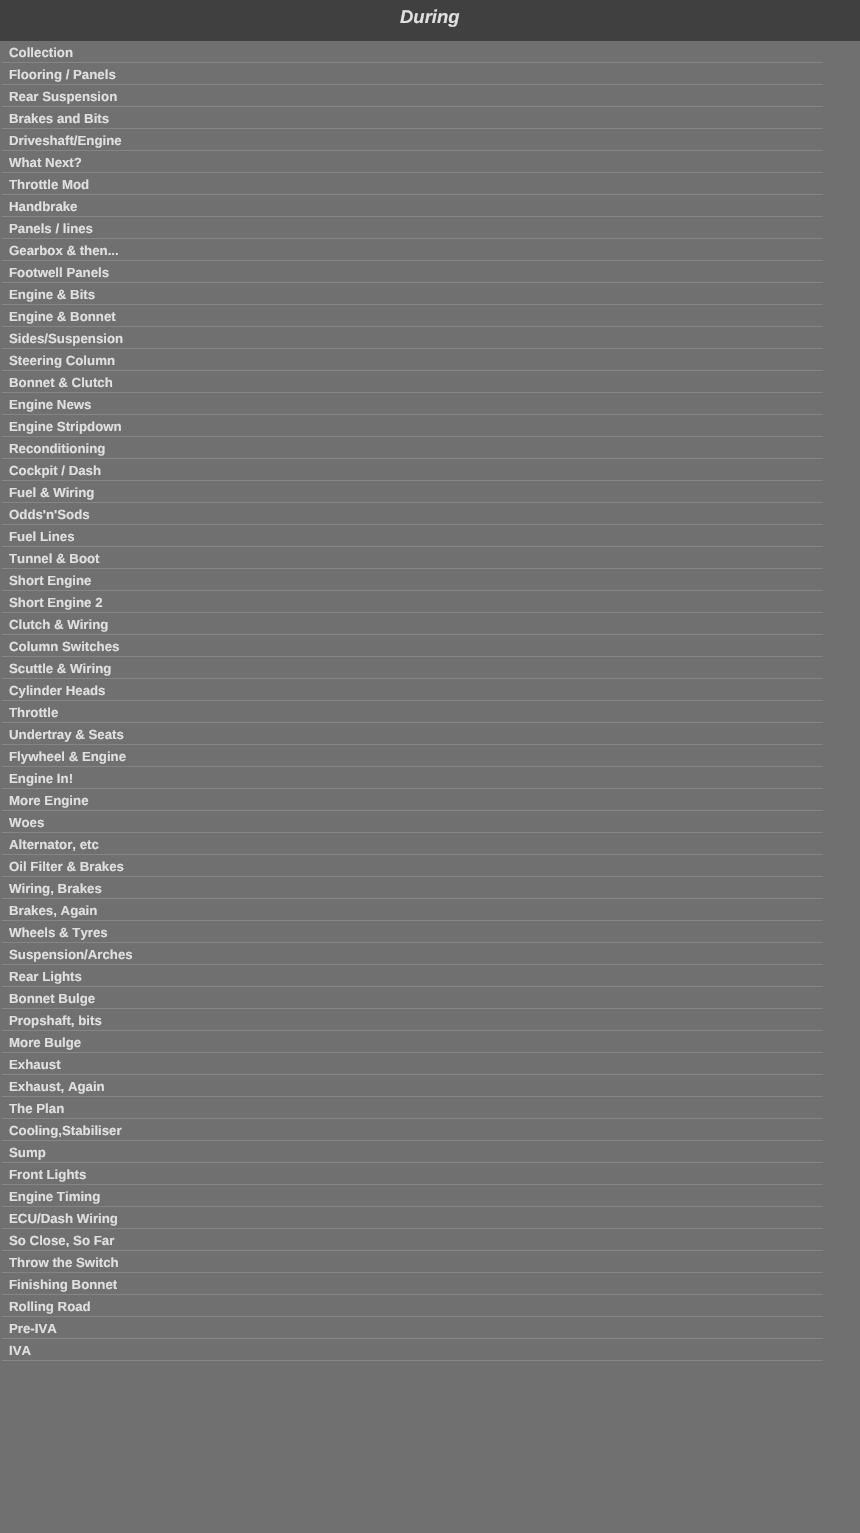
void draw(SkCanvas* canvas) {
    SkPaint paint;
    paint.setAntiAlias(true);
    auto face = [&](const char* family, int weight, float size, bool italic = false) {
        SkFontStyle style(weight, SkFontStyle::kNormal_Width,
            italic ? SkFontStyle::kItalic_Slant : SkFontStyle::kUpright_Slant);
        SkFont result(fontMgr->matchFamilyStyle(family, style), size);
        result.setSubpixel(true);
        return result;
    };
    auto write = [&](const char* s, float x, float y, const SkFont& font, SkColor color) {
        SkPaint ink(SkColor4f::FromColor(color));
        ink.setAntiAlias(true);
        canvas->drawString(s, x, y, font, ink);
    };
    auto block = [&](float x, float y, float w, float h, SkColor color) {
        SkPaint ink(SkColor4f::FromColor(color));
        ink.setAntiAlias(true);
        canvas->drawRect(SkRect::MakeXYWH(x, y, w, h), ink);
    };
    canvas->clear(SkColorSetRGB(112, 112, 112));
    block(0, 0, 860, 41, SkColorSetRGB(64, 64, 64));
    auto kFont1 = face("Liberation Sans", 700, 18.5f, true);
    write("During", 400, 23, kFont1, SkColorSetRGB(224, 224, 224));
    block(2, 62, 821, 1, SkColorSetRGB(133, 133, 133));
    auto kFont2 = face("Liberation Sans", 700, 13.25f);
    write("Collection", 9, 57, kFont2, SkColorSetRGB(224, 224, 224));
    block(2, 84, 821, 1, SkColorSetRGB(133, 133, 133));
    write("Flooring / Panels", 9, 79, kFont2, SkColorSetRGB(224, 224, 224));
    block(2, 106, 821, 1, SkColorSetRGB(133, 133, 133));
    write("Rear Suspension", 9, 101, kFont2, SkColorSetRGB(224, 224, 224));
    block(2, 128, 821, 1, SkColorSetRGB(133, 133, 133));
    write("Brakes and Bits", 9, 123, kFont2, SkColorSetRGB(224, 224, 224));
    block(2, 150, 821, 1, SkColorSetRGB(133, 133, 133));
    write("Driveshaft/Engine", 9, 145, kFont2, SkColorSetRGB(224, 224, 224));
    block(2, 172, 821, 1, SkColorSetRGB(133, 133, 133));
    write("What Next?", 9, 167, kFont2, SkColorSetRGB(224, 224, 224));
    block(2, 194, 821, 1, SkColorSetRGB(133, 133, 133));
    write("Throttle Mod", 9, 189, kFont2, SkColorSetRGB(224, 224, 224));
    block(2, 216, 821, 1, SkColorSetRGB(133, 133, 133));
    write("Handbrake", 9, 211, kFont2, SkColorSetRGB(224, 224, 224));
    block(2, 238, 821, 1, SkColorSetRGB(133, 133, 133));
    write("Panels / lines", 9, 233, kFont2, SkColorSetRGB(224, 224, 224));
    block(2, 260, 821, 1, SkColorSetRGB(133, 133, 133));
    write("Gearbox & then...", 9, 255, kFont2, SkColorSetRGB(224, 224, 224));
    block(2, 282, 821, 1, SkColorSetRGB(133, 133, 133));
    write("Footwell Panels", 9, 277, kFont2, SkColorSetRGB(224, 224, 224));
    block(2, 304, 821, 1, SkColorSetRGB(133, 133, 133));
    write("Engine & Bits", 9, 299, kFont2, SkColorSetRGB(224, 224, 224));
    block(2, 326, 821, 1, SkColorSetRGB(133, 133, 133));
    write("Engine & Bonnet", 9, 321, kFont2, SkColorSetRGB(224, 224, 224));
    block(2, 348, 821, 1, SkColorSetRGB(133, 133, 133));
    write("Sides/Suspension", 9, 343, kFont2, SkColorSetRGB(224, 224, 224));
    block(2, 370, 821, 1, SkColorSetRGB(133, 133, 133));
    write("Steering Column", 9, 365, kFont2, SkColorSetRGB(224, 224, 224));
    block(2, 392, 821, 1, SkColorSetRGB(133, 133, 133));
    write("Bonnet & Clutch", 9, 387, kFont2, SkColorSetRGB(224, 224, 224));
    block(2, 414, 821, 1, SkColorSetRGB(133, 133, 133));
    write("Engine News", 9, 409, kFont2, SkColorSetRGB(224, 224, 224));
    block(2, 436, 821, 1, SkColorSetRGB(133, 133, 133));
    write("Engine Stripdown", 9, 431, kFont2, SkColorSetRGB(224, 224, 224));
    block(2, 458, 821, 1, SkColorSetRGB(133, 133, 133));
    write("Reconditioning", 9, 453, kFont2, SkColorSetRGB(224, 224, 224));
    block(2, 480, 821, 1, SkColorSetRGB(133, 133, 133));
    write("Cockpit / Dash", 9, 475, kFont2, SkColorSetRGB(224, 224, 224));
    block(2, 502, 821, 1, SkColorSetRGB(133, 133, 133));
    write("Fuel & Wiring", 9, 497, kFont2, SkColorSetRGB(224, 224, 224));
    block(2, 524, 821, 1, SkColorSetRGB(133, 133, 133));
    write("Odds'n'Sods", 9, 519, kFont2, SkColorSetRGB(224, 224, 224));
    block(2, 546, 821, 1, SkColorSetRGB(133, 133, 133));
    write("Fuel Lines", 9, 541, kFont2, SkColorSetRGB(224, 224, 224));
    block(2, 568, 821, 1, SkColorSetRGB(133, 133, 133));
    write("Tunnel & Boot", 9, 563, kFont2, SkColorSetRGB(224, 224, 224));
    block(2, 590, 821, 1, SkColorSetRGB(133, 133, 133));
    write("Short Engine", 9, 585, kFont2, SkColorSetRGB(224, 224, 224));
    block(2, 612, 821, 1, SkColorSetRGB(133, 133, 133));
    write("Short Engine 2", 9, 607, kFont2, SkColorSetRGB(224, 224, 224));
    block(2, 634, 821, 1, SkColorSetRGB(133, 133, 133));
    write("Clutch & Wiring", 9, 629, kFont2, SkColorSetRGB(224, 224, 224));
    block(2, 656, 821, 1, SkColorSetRGB(133, 133, 133));
    write("Column Switches", 9, 651, kFont2, SkColorSetRGB(224, 224, 224));
    block(2, 678, 821, 1, SkColorSetRGB(133, 133, 133));
    write("Scuttle & Wiring", 9, 673, kFont2, SkColorSetRGB(224, 224, 224));
    block(2, 700, 821, 1, SkColorSetRGB(133, 133, 133));
    write("Cylinder Heads", 9, 695, kFont2, SkColorSetRGB(224, 224, 224));
    block(2, 722, 821, 1, SkColorSetRGB(133, 133, 133));
    write("Throttle", 9, 717, kFont2, SkColorSetRGB(224, 224, 224));
    block(2, 744, 821, 1, SkColorSetRGB(133, 133, 133));
    write("Undertray & Seats", 9, 739, kFont2, SkColorSetRGB(224, 224, 224));
    block(2, 766, 821, 1, SkColorSetRGB(133, 133, 133));
    write("Flywheel & Engine", 9, 761, kFont2, SkColorSetRGB(224, 224, 224));
    block(2, 788, 821, 1, SkColorSetRGB(133, 133, 133));
    write("Engine In!", 9, 783, kFont2, SkColorSetRGB(224, 224, 224));
    block(2, 810, 821, 1, SkColorSetRGB(133, 133, 133));
    write("More Engine", 9, 805, kFont2, SkColorSetRGB(224, 224, 224));
    block(2, 832, 821, 1, SkColorSetRGB(133, 133, 133));
    write("Woes", 9, 827, kFont2, SkColorSetRGB(224, 224, 224));
    block(2, 854, 821, 1, SkColorSetRGB(133, 133, 133));
    write("Alternator, etc", 9, 849, kFont2, SkColorSetRGB(224, 224, 224));
    block(2, 876, 821, 1, SkColorSetRGB(133, 133, 133));
    write("Oil Filter & Brakes", 9, 871, kFont2, SkColorSetRGB(224, 224, 224));
    block(2, 898, 821, 1, SkColorSetRGB(133, 133, 133));
    write("Wiring, Brakes", 9, 893, kFont2, SkColorSetRGB(224, 224, 224));
    block(2, 920, 821, 1, SkColorSetRGB(133, 133, 133));
    write("Brakes, Again", 9, 915, kFont2, SkColorSetRGB(224, 224, 224));
    block(2, 942, 821, 1, SkColorSetRGB(133, 133, 133));
    write("Wheels & Tyres", 9, 937, kFont2, SkColorSetRGB(224, 224, 224));
    block(2, 964, 821, 1, SkColorSetRGB(133, 133, 133));
    write("Suspension/Arches", 9, 959, kFont2, SkColorSetRGB(224, 224, 224));
    block(2, 986, 821, 1, SkColorSetRGB(133, 133, 133));
    write("Rear Lights", 9, 981, kFont2, SkColorSetRGB(224, 224, 224));
    block(2, 1008, 821, 1, SkColorSetRGB(133, 133, 133));
    write("Bonnet Bulge", 9, 1003, kFont2, SkColorSetRGB(224, 224, 224));
    block(2, 1030, 821, 1, SkColorSetRGB(133, 133, 133));
    write("Propshaft, bits", 9, 1025, kFont2, SkColorSetRGB(224, 224, 224));
    block(2, 1052, 821, 1, SkColorSetRGB(133, 133, 133));
    write("More Bulge", 9, 1047, kFont2, SkColorSetRGB(224, 224, 224));
    block(2, 1074, 821, 1, SkColorSetRGB(133, 133, 133));
    write("Exhaust", 9, 1069, kFont2, SkColorSetRGB(224, 224, 224));
    block(2, 1096, 821, 1, SkColorSetRGB(133, 133, 133));
    write("Exhaust, Again", 9, 1091, kFont2, SkColorSetRGB(224, 224, 224));
    block(2, 1118, 821, 1, SkColorSetRGB(133, 133, 133));
    write("The Plan", 9, 1113, kFont2, SkColorSetRGB(224, 224, 224));
    block(2, 1140, 821, 1, SkColorSetRGB(133, 133, 133));
    write("Cooling,Stabiliser", 9, 1135, kFont2, SkColorSetRGB(224, 224, 224));
    block(2, 1162, 821, 1, SkColorSetRGB(133, 133, 133));
    write("Sump", 9, 1157, kFont2, SkColorSetRGB(224, 224, 224));
    block(2, 1184, 821, 1, SkColorSetRGB(133, 133, 133));
    write("Front Lights", 9, 1179, kFont2, SkColorSetRGB(224, 224, 224));
    block(2, 1206, 821, 1, SkColorSetRGB(133, 133, 133));
    write("Engine Timing", 9, 1201, kFont2, SkColorSetRGB(224, 224, 224));
    block(2, 1228, 821, 1, SkColorSetRGB(133, 133, 133));
    write("ECU/Dash Wiring", 9, 1223, kFont2, SkColorSetRGB(224, 224, 224));
    block(2, 1250, 821, 1, SkColorSetRGB(133, 133, 133));
    write("So Close, So Far", 9, 1245, kFont2, SkColorSetRGB(224, 224, 224));
    block(2, 1272, 821, 1, SkColorSetRGB(133, 133, 133));
    write("Throw the Switch", 9, 1267, kFont2, SkColorSetRGB(224, 224, 224));
    block(2, 1294, 821, 1, SkColorSetRGB(133, 133, 133));
    write("Finishing Bonnet", 9, 1289, kFont2, SkColorSetRGB(224, 224, 224));
    block(2, 1316, 821, 1, SkColorSetRGB(133, 133, 133));
    write("Rolling Road", 9, 1311, kFont2, SkColorSetRGB(224, 224, 224));
    block(2, 1338, 821, 1, SkColorSetRGB(133, 133, 133));
    write("Pre-IVA", 9, 1333, kFont2, SkColorSetRGB(224, 224, 224));
    block(2, 1360, 821, 1, SkColorSetRGB(133, 133, 133));
    write("IVA", 9, 1355, kFont2, SkColorSetRGB(224, 224, 224));
}
